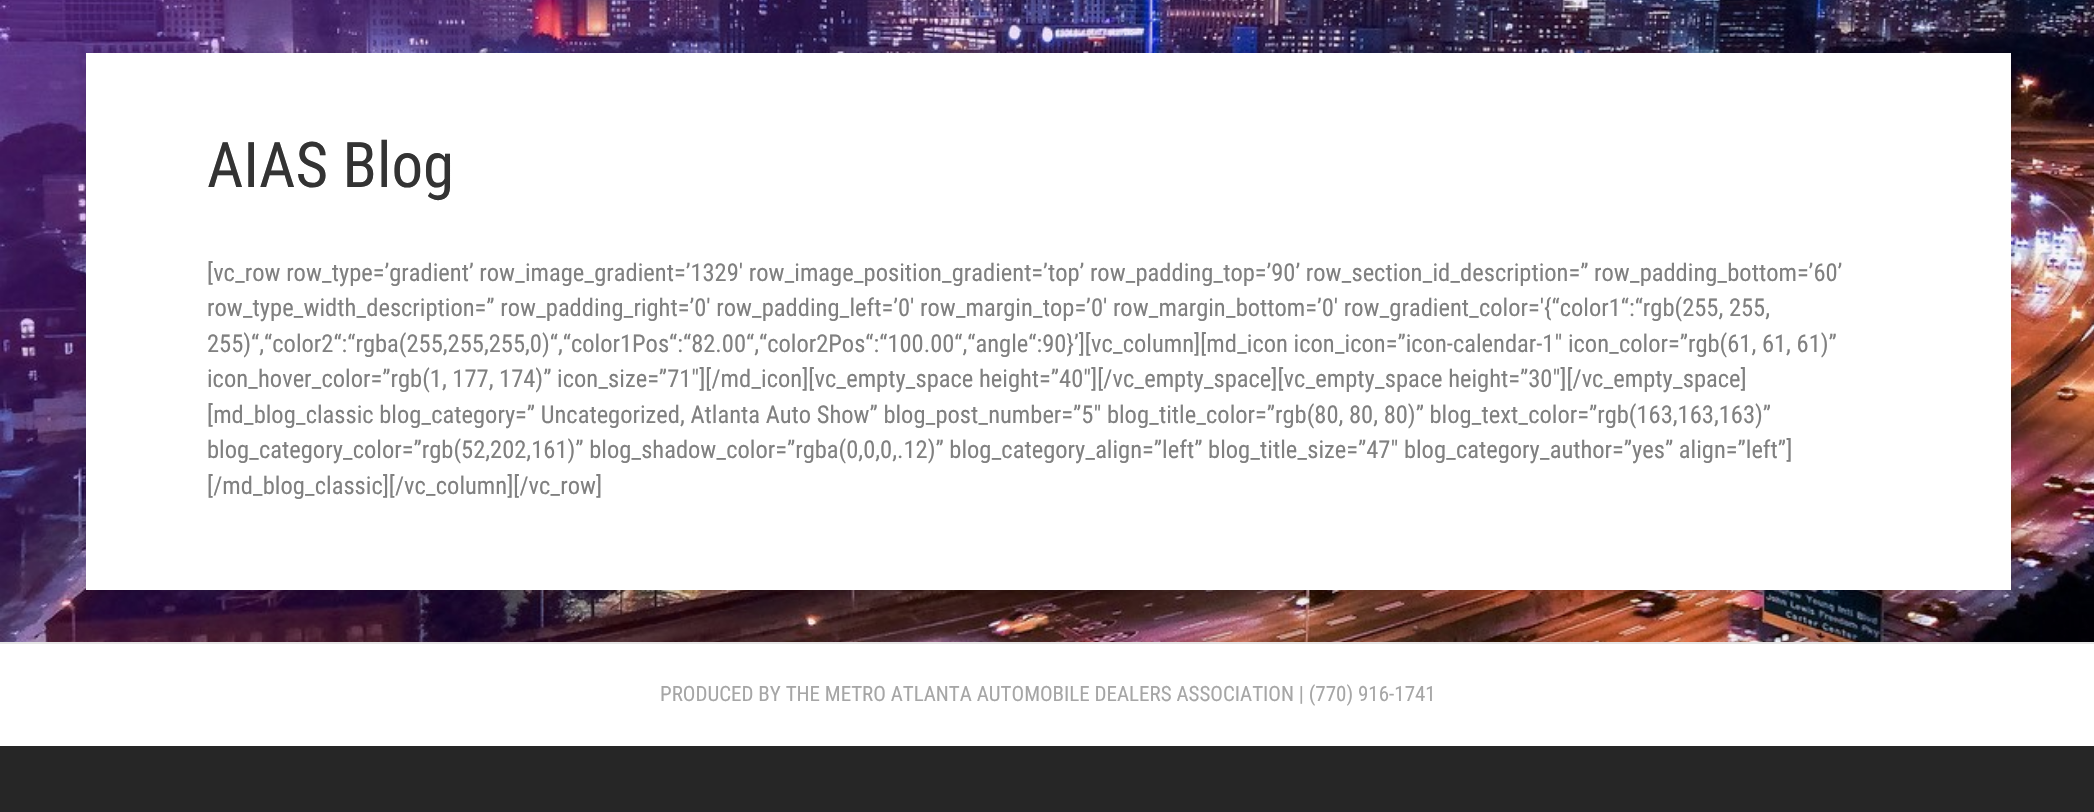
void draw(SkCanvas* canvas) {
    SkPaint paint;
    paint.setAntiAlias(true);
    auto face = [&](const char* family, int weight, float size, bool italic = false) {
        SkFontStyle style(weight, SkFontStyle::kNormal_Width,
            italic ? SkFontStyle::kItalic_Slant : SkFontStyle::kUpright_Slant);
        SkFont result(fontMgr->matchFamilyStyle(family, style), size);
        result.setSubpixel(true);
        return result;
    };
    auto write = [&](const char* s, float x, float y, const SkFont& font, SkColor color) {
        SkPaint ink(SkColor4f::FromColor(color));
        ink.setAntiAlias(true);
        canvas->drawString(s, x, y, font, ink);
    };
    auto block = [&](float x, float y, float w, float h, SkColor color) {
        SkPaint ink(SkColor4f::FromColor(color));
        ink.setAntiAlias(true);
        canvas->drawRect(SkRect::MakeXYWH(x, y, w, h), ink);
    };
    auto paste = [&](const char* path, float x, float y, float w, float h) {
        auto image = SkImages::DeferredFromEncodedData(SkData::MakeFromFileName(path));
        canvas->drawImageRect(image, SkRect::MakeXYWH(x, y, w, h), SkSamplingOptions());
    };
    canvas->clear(SkColorSetRGB(38, 38, 38));
    paste("pic1.png", 0, 0, 2094, 642);
    paint.setColor(SkColorSetARGB(38, 0, 0, 0));
    paint.setMaskFilter(SkMaskFilter::MakeBlur(kNormal_SkBlurStyle, 4.5f));
    canvas->drawRect(SkRect::MakeXYWH(86, 53, 1925, 537), paint);
    paint.setMaskFilter(nullptr);
    block(86, 53, 1925, 537, SK_ColorWHITE);
    auto kFont1 = face("Roboto Condensed", 400, 63);
    write("AIAS Blog", 207, 187, kFont1, SkColorSetRGB(51, 51, 51));
    auto kFont2 = face("Roboto Condensed", 400, 24.5f);
    write("[vc_row row_type=’gradient’ row_image_gradient=’1329′ row_image_position_gradient=’top’ row_padding_top=’90’ row_section_id_description=” row_padding_bottom=’60’", 207, 281, kFont2, SkColorSetRGB(128, 128, 128));
    write("row_type_width_description=” row_padding_right=’0′ row_padding_left=’0′ row_margin_top=’0′ row_margin_bottom=’0′ row_gradient_color='{“color1“:“rgb(255, 255,", 207, 316, kFont2, SkColorSetRGB(128, 128, 128));
    write("255)“,“color2“:“rgba(255,255,255,0)“,“color1Pos“:“82.00“,“color2Pos“:“100.00“,“angle“:90}’][vc_column][md_icon icon_icon=”icon-calendar-1″ icon_color=”rgb(61, 61, 61)”", 207, 352, kFont2, SkColorSetRGB(128, 128, 128));
    write("icon_hover_color=”rgb(1, 177, 174)” icon_size=”71″][/md_icon][vc_empty_space height=”40″][/vc_empty_space][vc_empty_space height=”30″][/vc_empty_space]", 207, 387, kFont2, SkColorSetRGB(128, 128, 128));
    write("[md_blog_classic blog_category=” Uncategorized, Atlanta Auto Show” blog_post_number=”5″ blog_title_color=”rgb(80, 80, 80)” blog_text_color=”rgb(163,163,163)”", 207, 423, kFont2, SkColorSetRGB(128, 128, 128));
    write("blog_category_color=”rgb(52,202,161)” blog_shadow_color=”rgba(0,0,0,.12)” blog_category_align=”left” blog_title_size=”47″ blog_category_author=”yes” align=”left”]", 207, 458, kFont2, SkColorSetRGB(128, 128, 128));
    write("[/md_blog_classic][/vc_column][/vc_row]", 207, 494, kFont2, SkColorSetRGB(128, 128, 128));
    block(0, 644, 2094, 102, SK_ColorWHITE);
    block(0, 642, 2094, 2, SkColorSetRGB(230, 230, 230));
    auto kFont3 = face("Roboto Condensed", 400, 21);
    write("PRODUCED BY THE METRO ATLANTA AUTOMOBILE DEALERS ASSOCIATION | (770) 916-1741", 660, 701, kFont3, SkColorSetRGB(166, 166, 166));
}
